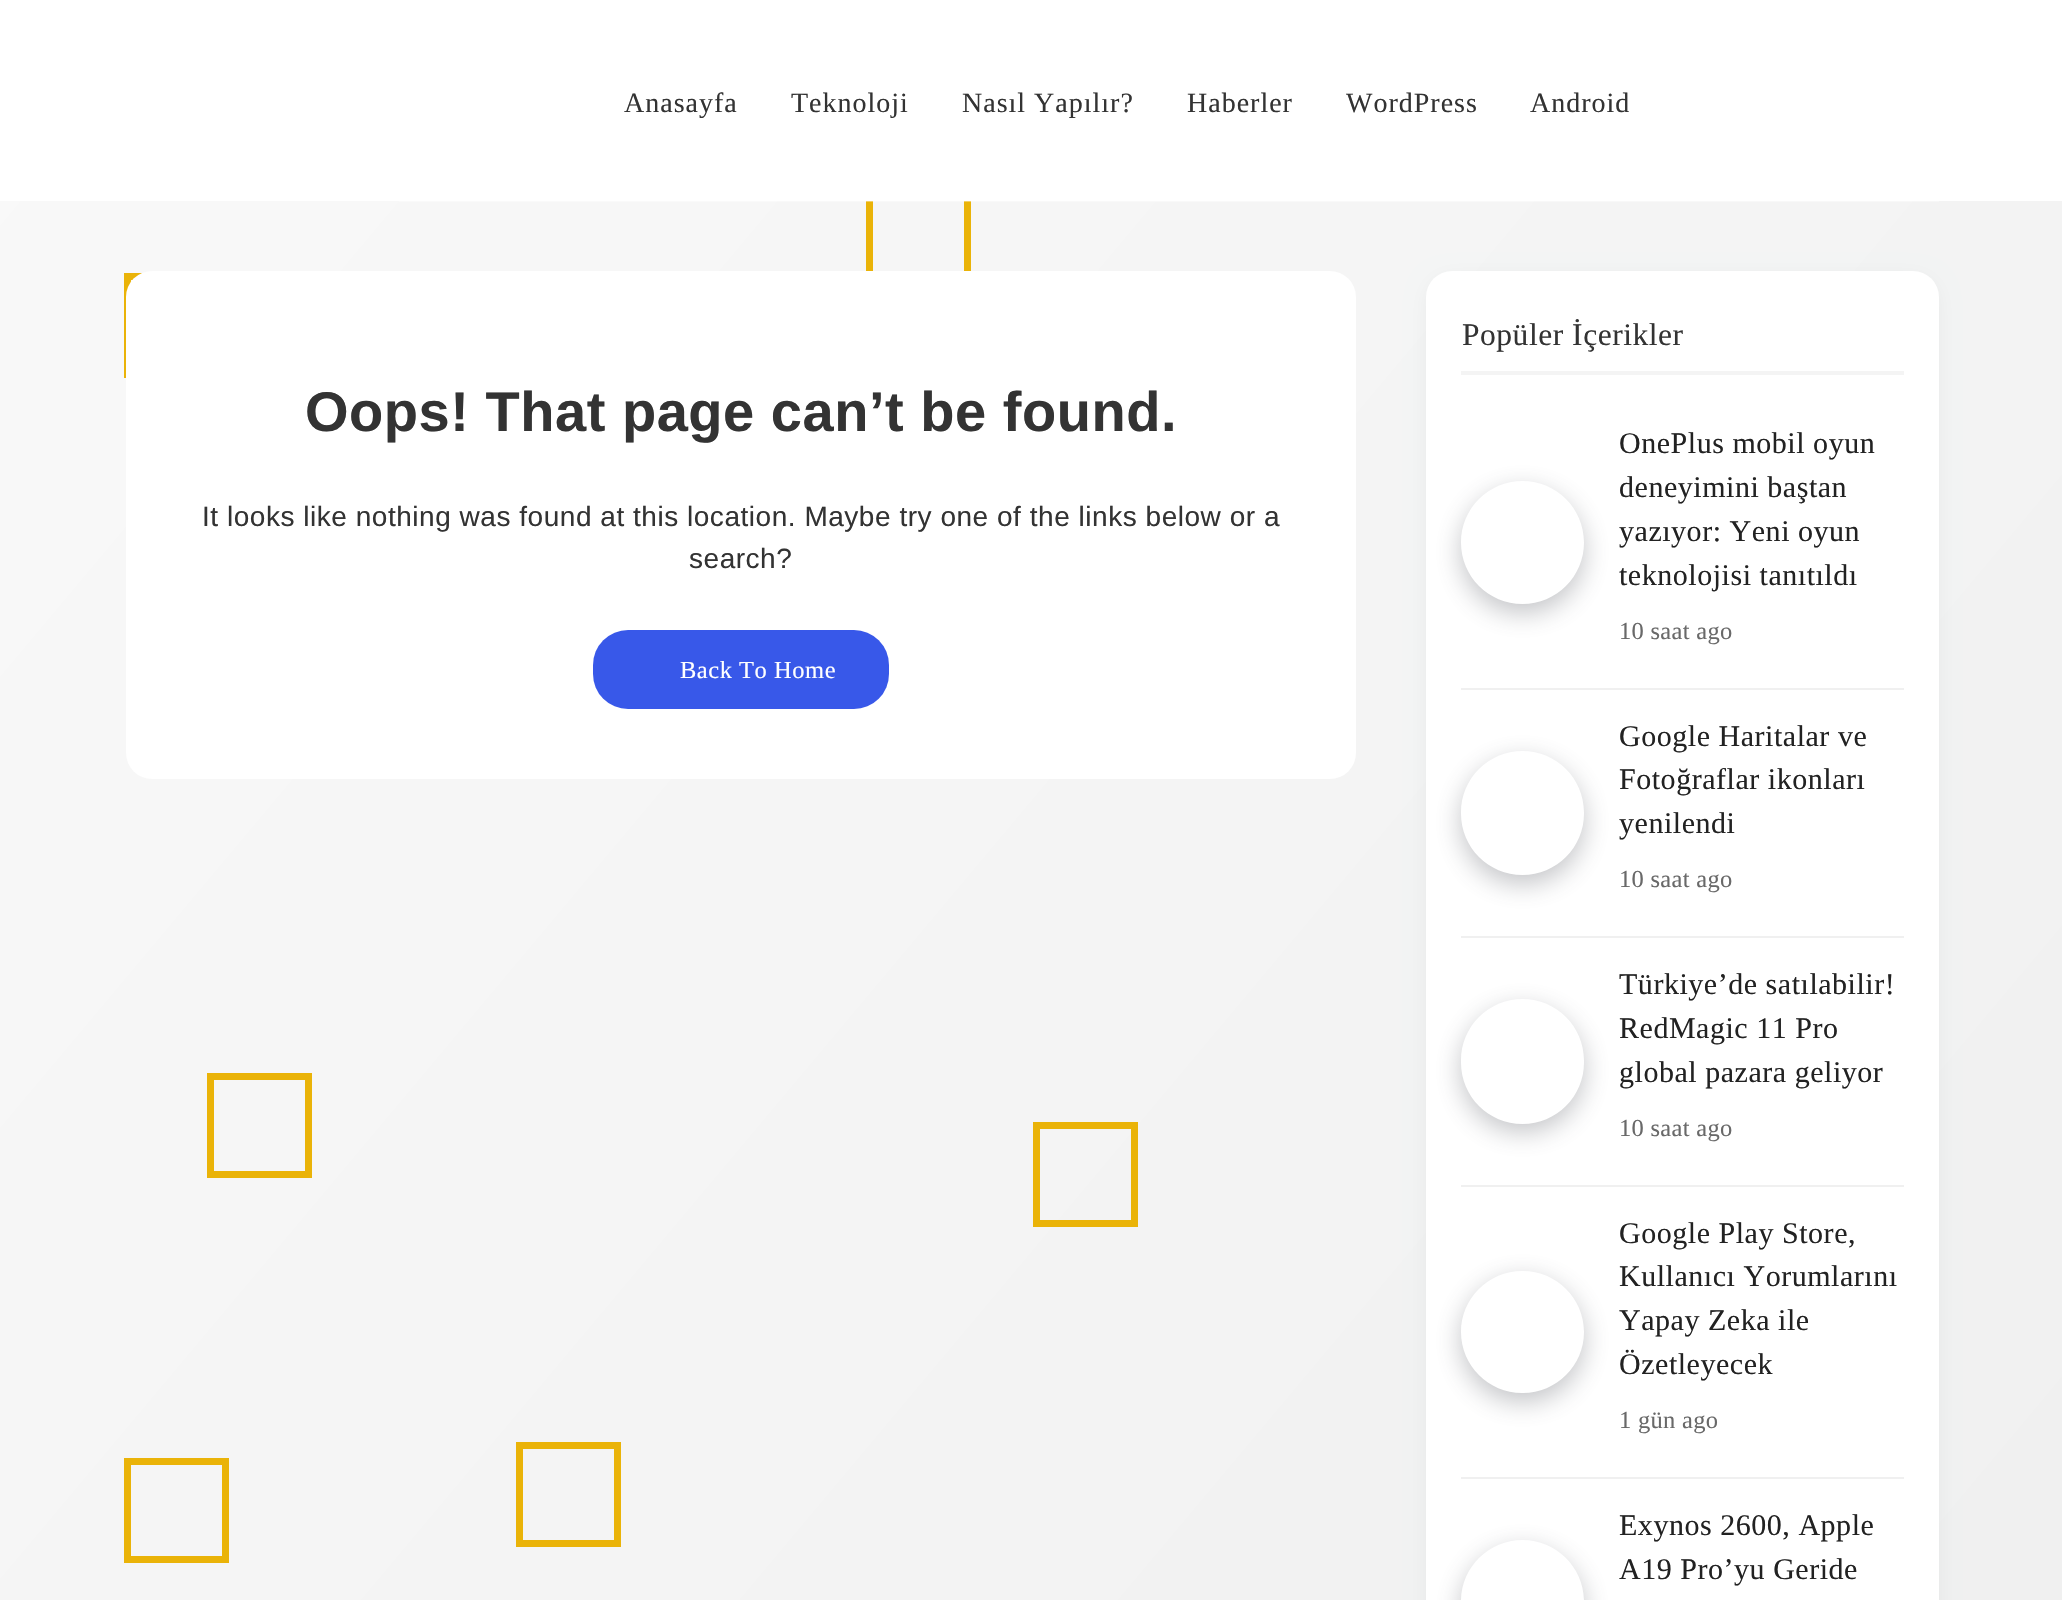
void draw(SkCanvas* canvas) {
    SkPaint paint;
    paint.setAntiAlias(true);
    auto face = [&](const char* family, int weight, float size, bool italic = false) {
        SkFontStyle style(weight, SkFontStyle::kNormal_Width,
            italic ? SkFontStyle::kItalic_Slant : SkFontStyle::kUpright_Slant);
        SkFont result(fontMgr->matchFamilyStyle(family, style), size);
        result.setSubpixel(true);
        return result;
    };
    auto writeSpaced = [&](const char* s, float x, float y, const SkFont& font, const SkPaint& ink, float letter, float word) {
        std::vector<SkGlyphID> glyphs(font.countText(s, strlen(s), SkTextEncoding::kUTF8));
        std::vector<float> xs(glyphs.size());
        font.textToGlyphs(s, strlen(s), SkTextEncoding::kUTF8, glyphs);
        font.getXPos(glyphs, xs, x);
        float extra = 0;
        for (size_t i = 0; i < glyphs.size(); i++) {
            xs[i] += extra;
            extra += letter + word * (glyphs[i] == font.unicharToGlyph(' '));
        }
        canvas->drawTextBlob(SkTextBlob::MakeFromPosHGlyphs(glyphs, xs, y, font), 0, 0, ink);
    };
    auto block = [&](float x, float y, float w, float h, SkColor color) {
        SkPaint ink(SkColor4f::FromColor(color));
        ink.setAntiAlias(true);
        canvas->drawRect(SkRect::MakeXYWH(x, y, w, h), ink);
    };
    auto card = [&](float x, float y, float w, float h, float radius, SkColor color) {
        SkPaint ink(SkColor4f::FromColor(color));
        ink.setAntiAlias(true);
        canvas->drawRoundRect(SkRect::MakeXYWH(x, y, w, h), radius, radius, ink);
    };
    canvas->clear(SK_ColorWHITE);
    {
        const SkColor colors[] = {SkColorSetRGB(249, 249, 249), SkColorSetRGB(240, 240, 240)};
        const float stops[] = {0, 1};
        const SkPoint ends[] = {{32, -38}, {2031, 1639}};
        paint.setShader(SkGradientShader::MakeLinear(ends, colors, stops, 2, SkTileMode::kClamp));
        paint.setAlpha(255);
    }
    canvas->drawRect(SkRect::MakeXYWH(0, 201, 2062, 1399), paint);
    paint.setStyle(SkPaint::kStroke_Style);
    paint.setStrokeWidth(7);
    paint.setShader(nullptr);
    paint.setColor(SkColorSetRGB(234, 179, 8));
    canvas->drawRect(SkRect::MakeXYWH(869.5f, 196.5f, 98, 98), paint);
    block(866, 193, 105, 8, SK_ColorWHITE);
    block(399, 201, 1540, 1, SkColorSetARGB(94, 255, 255, 255));
    auto kFont1 = face("Liberation Serif", 400, 28);
    paint.setStyle(SkPaint::kFill_Style);
    paint.setColor(SkColorSetRGB(51, 51, 51));
    writeSpaced("Anasayfa", 624, 112, kFont1, paint, 1, 0);
    writeSpaced("Teknoloji", 791, 112, kFont1, paint, 1, 0);
    writeSpaced("Nasıl Yapılır?", 962, 112, kFont1, paint, 1, 0);
    writeSpaced("Haberler", 1187, 112, kFont1, paint, 1, 0);
    writeSpaced("WordPress", 1346, 112, kFont1, paint, 1, 0);
    writeSpaced("Android", 1530, 112, kFont1, paint, 1, 0);
    paint.setStyle(SkPaint::kStroke_Style);
    paint.setColor(SkColorSetRGB(234, 179, 8));
    canvas->drawRect(SkRect::MakeXYWH(127.5f, 276.5f, 98, 98), paint);
    card(126, 271, 1230, 508, 26, SK_ColorWHITE);
    auto kFont2 = face("Liberation Sans", 700, 56);
    paint.setStyle(SkPaint::kFill_Style);
    paint.setColor(SkColorSetRGB(51, 51, 51));
    writeSpaced("Oops! That page can’t be found.", 305, 431, kFont2, paint, 0.53f, 0);
    auto kFont3 = face("Liberation Sans", 400, 28);
    writeSpaced("It looks like nothing was found at this location. Maybe try one of the links below or a", 202, 526, kFont3, paint, 0.53f, 0);
    writeSpaced("search?", 689, 568, kFont3, paint, 0.53f, 0);
    card(593, 630, 296, 79, 35, SkColorSetRGB(56, 88, 233));
    auto kFont4 = face("Liberation Serif", 400, 24.5f);
    paint.setColor(SK_ColorWHITE);
    writeSpaced("Back To Home", 680, 678, kFont4, paint, 0.53f, 0);
    paint.setColor(SkColorSetARGB(13, 7, 10, 25));
    paint.setMaskFilter(SkMaskFilter::MakeBlur(kNormal_SkBlurStyle, 10.5f));
    canvas->drawRoundRect(SkRect::MakeXYWH(1428, 278, 509, 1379), 25, 25, paint);
    paint.setMaskFilter(nullptr);
    card(1426, 271, 513, 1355, 26, SK_ColorWHITE);
    block(1461, 371, 443, 4, SkColorSetRGB(244, 244, 244));
    auto kFont5 = face("Liberation Serif", 400, 31.5f);
    paint.setColor(SkColorSetRGB(51, 51, 51));
    writeSpaced("Popüler İçerikler", 1462, 345, kFont5, paint, 0.53f, 0);
    block(1461, 688, 443, 2, SkColorSetRGB(240, 240, 240));
    canvas->save();
    canvas->clipPath(SkPathBuilder(SkPathFillType::kEvenOdd).moveTo(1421, 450).lineTo(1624, 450).lineTo(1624, 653).lineTo(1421, 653).close().moveTo(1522.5f, 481).cubicTo(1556.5f, 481, 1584, 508.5f, 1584, 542.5f).cubicTo(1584, 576.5f, 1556.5f, 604, 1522.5f, 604).cubicTo(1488.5f, 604, 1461, 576.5f, 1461, 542.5f).cubicTo(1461, 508.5f, 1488.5f, 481, 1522.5f, 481).close().detach(), true);
    paint.setColor(SkColorSetARGB(84, 74, 77, 84));
    paint.setMaskFilter(SkMaskFilter::MakeBlur(kNormal_SkBlurStyle, 13));
    canvas->drawRoundRect(SkRect::MakeXYWH(1461, 490, 123, 123), 61.5f, 61.5f, paint);
    paint.setMaskFilter(nullptr);
    canvas->restore();
    auto kFont6 = face("Liberation Serif", 400, 30);
    paint.setColor(SkColorSetRGB(34, 34, 34));
    writeSpaced("OnePlus mobil oyun", 1619, 453, kFont6, paint, 0.53f, 0);
    writeSpaced("deneyimini baştan", 1619, 497, kFont6, paint, 0.53f, 0);
    writeSpaced("yazıyor: Yeni oyun", 1619, 541, kFont6, paint, 0.53f, 0);
    writeSpaced("teknolojisi tanıtıldı", 1619, 585, kFont6, paint, 0.53f, 0);
    paint.setColor(SkColorSetRGB(105, 105, 105));
    writeSpaced("10 saat ago", 1619, 639, kFont4, paint, 0.3f, 0);
    block(1461, 936, 443, 2, SkColorSetRGB(240, 240, 240));
    canvas->save();
    canvas->clipPath(SkPathBuilder(SkPathFillType::kEvenOdd).moveTo(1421, 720).lineTo(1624, 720).lineTo(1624, 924).lineTo(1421, 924).close().moveTo(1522.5f, 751).cubicTo(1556.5f, 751, 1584, 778.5f, 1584, 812.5f).lineTo(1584, 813.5f).cubicTo(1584, 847.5f, 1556.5f, 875, 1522.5f, 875).cubicTo(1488.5f, 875, 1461, 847.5f, 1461, 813.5f).lineTo(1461, 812.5f).cubicTo(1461, 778.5f, 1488.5f, 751, 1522.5f, 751).close().detach(), true);
    paint.setColor(SkColorSetARGB(84, 74, 77, 84));
    paint.setMaskFilter(SkMaskFilter::MakeBlur(kNormal_SkBlurStyle, 13));
    canvas->drawRoundRect(SkRect::MakeXYWH(1461, 760, 123, 124), 61.5f, 61.5f, paint);
    paint.setMaskFilter(nullptr);
    canvas->restore();
    paint.setColor(SkColorSetRGB(34, 34, 34));
    writeSpaced("Google Haritalar ve", 1619, 746, kFont6, paint, 0.53f, 0);
    writeSpaced("Fotoğraflar ikonları", 1619, 789, kFont6, paint, 0.53f, 0);
    writeSpaced("yenilendi", 1619, 833, kFont6, paint, 0.53f, 0);
    paint.setColor(SkColorSetRGB(105, 105, 105));
    writeSpaced("10 saat ago", 1619, 887, kFont4, paint, 0.3f, 0);
    block(1461, 1185, 443, 2, SkColorSetRGB(240, 240, 240));
    canvas->save();
    canvas->clipPath(SkPathBuilder(SkPathFillType::kEvenOdd).moveTo(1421, 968).lineTo(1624, 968).lineTo(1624, 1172).lineTo(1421, 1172).close().moveTo(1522.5f, 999).cubicTo(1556.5f, 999, 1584, 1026.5f, 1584, 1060.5f).lineTo(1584, 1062.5f).cubicTo(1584, 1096.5f, 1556.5f, 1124, 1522.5f, 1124).cubicTo(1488.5f, 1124, 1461, 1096.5f, 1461, 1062.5f).lineTo(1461, 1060.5f).cubicTo(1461, 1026.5f, 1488.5f, 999, 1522.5f, 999).close().detach(), true);
    paint.setColor(SkColorSetARGB(84, 74, 77, 84));
    paint.setMaskFilter(SkMaskFilter::MakeBlur(kNormal_SkBlurStyle, 13));
    canvas->drawRoundRect(SkRect::MakeXYWH(1461, 1008, 123, 124), 61.5f, 61.5f, paint);
    paint.setMaskFilter(nullptr);
    canvas->restore();
    paint.setColor(SkColorSetRGB(34, 34, 34));
    writeSpaced("Türkiye’de satılabilir!", 1619, 994, kFont6, paint, 0.53f, 0);
    writeSpaced("RedMagic 11 Pro", 1619, 1038, kFont6, paint, 0.53f, 0);
    writeSpaced("global pazara geliyor", 1619, 1082, kFont6, paint, 0.53f, 0);
    paint.setColor(SkColorSetRGB(105, 105, 105));
    writeSpaced("10 saat ago", 1619, 1136, kFont4, paint, 0.3f, 0);
    block(1461, 1477, 443, 2, SkColorSetRGB(240, 240, 240));
    canvas->save();
    canvas->clipPath(SkPathBuilder(SkPathFillType::kEvenOdd).moveTo(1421, 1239).lineTo(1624, 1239).lineTo(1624, 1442).lineTo(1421, 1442).close().moveTo(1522, 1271).lineTo(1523, 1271).cubicTo(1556.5f, 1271, 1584, 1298.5f, 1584, 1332).cubicTo(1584, 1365.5f, 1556.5f, 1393, 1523, 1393).lineTo(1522, 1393).cubicTo(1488.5f, 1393, 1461, 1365.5f, 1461, 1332).cubicTo(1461, 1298.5f, 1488.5f, 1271, 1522, 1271).close().detach(), true);
    paint.setColor(SkColorSetARGB(84, 74, 77, 84));
    paint.setMaskFilter(SkMaskFilter::MakeBlur(kNormal_SkBlurStyle, 13));
    canvas->drawRoundRect(SkRect::MakeXYWH(1461, 1279, 123, 123), 61.5f, 61.5f, paint);
    paint.setMaskFilter(nullptr);
    canvas->restore();
    paint.setColor(SkColorSetRGB(34, 34, 34));
    writeSpaced("Google Play Store,", 1619, 1243, kFont6, paint, 0.53f, 0);
    writeSpaced("Kullanıcı Yorumlarını", 1619, 1286, kFont6, paint, 0.53f, 0);
    writeSpaced("Yapay Zeka ile", 1619, 1330, kFont6, paint, 0.53f, 0);
    writeSpaced("Özetleyecek", 1619, 1374, kFont6, paint, 0.53f, 0);
    paint.setColor(SkColorSetRGB(105, 105, 105));
    writeSpaced("1 gün ago", 1619, 1428, kFont4, paint, 0.3f, 0);
    canvas->save();
    canvas->clipPath(SkPathBuilder(SkPathFillType::kEvenOdd).moveTo(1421, 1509).lineTo(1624, 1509).lineTo(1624, 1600).lineTo(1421, 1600).close().moveTo(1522.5f, 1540).cubicTo(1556.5f, 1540, 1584, 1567.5f, 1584, 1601.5f).lineTo(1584, 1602.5f).cubicTo(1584, 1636.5f, 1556.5f, 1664, 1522.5f, 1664).cubicTo(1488.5f, 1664, 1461, 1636.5f, 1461, 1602.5f).lineTo(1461, 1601.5f).cubicTo(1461, 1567.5f, 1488.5f, 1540, 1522.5f, 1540).close().detach(), true);
    paint.setColor(SkColorSetARGB(84, 74, 77, 84));
    paint.setMaskFilter(SkMaskFilter::MakeBlur(kNormal_SkBlurStyle, 13));
    canvas->drawRoundRect(SkRect::MakeXYWH(1461, 1549, 123, 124), 61.5f, 61.5f, paint);
    paint.setMaskFilter(nullptr);
    canvas->restore();
    paint.setColor(SkColorSetRGB(34, 34, 34));
    writeSpaced("Exynos 2600, Apple", 1619, 1535, kFont6, paint, 0.53f, 0);
    writeSpaced("A19 Pro’yu Geride", 1619, 1579, kFont6, paint, 0.53f, 0);
    paint.setStyle(SkPaint::kStroke_Style);
    paint.setColor(SkColorSetRGB(234, 179, 8));
    canvas->drawRect(SkRect::MakeXYWH(210.5f, 1076.5f, 98, 98), paint);
    canvas->drawRect(SkRect::MakeXYWH(1036.5f, 1125.5f, 98, 98), paint);
    canvas->drawRect(SkRect::MakeXYWH(127.5f, 1461.5f, 98, 98), paint);
    canvas->drawRect(SkRect::MakeXYWH(519.5f, 1445.5f, 98, 98), paint);
}
